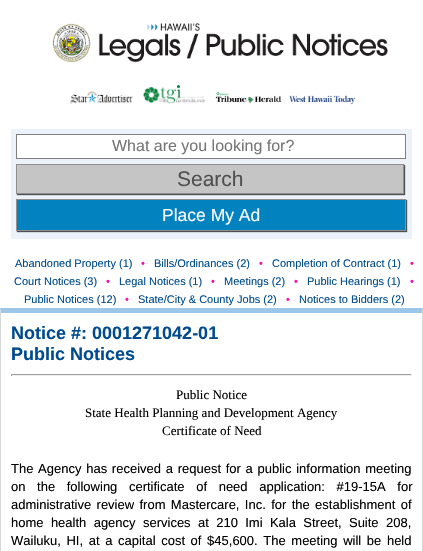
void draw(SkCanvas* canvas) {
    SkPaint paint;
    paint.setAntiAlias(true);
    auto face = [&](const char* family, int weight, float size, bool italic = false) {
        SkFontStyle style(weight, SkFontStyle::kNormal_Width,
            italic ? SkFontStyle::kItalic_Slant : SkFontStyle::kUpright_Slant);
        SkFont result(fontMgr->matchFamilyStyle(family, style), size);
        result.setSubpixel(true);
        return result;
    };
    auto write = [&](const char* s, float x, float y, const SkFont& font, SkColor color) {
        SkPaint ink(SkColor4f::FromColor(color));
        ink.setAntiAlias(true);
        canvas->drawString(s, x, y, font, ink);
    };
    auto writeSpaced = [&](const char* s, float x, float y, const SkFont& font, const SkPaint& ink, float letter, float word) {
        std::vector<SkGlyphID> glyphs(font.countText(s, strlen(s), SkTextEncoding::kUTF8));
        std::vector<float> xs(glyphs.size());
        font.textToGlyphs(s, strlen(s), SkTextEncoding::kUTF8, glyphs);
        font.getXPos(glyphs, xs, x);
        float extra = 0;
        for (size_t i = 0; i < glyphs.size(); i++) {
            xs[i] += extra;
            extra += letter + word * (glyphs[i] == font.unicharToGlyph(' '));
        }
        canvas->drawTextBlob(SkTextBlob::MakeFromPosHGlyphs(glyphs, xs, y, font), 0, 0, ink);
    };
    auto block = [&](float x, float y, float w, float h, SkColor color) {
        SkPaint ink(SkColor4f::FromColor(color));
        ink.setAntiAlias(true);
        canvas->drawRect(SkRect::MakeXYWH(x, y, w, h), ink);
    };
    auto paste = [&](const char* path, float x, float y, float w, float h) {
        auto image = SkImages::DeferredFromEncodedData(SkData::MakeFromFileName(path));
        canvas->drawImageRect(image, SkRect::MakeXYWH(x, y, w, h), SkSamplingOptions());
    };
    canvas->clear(SK_ColorWHITE);
    paste("pic1.png", 52, 23, 336, 39);
    paste("pic2.png", 70, 91, 63, 13);
    paste("pic3.png", 142, 85, 64, 19);
    paste("pic4.png", 215, 92, 66, 12);
    paste("pic5.png", 289, 95, 67, 10);
    block(11, 129, 401, 110, SkColorSetRGB(237, 241, 250));
    paint.setColor(SK_ColorWHITE);
    canvas->drawRect(SkRect::MakeXYWH(16.5f, 134.5f, 389, 24), paint);
    paint.setStyle(SkPaint::kStroke_Style);
    paint.setStrokeWidth(1);
    paint.setColor(SkColorSetRGB(128, 128, 128));
    canvas->drawRect(SkRect::MakeXYWH(16.5f, 134.5f, 389, 24), paint);
    auto kFont1 = face("Liberation Sans", 400, 16);
    write("What are you looking for?", 112, 151, kFont1, SkColorSetRGB(117, 117, 117));
    paint.setStyle(SkPaint::kFill_Style);
    paint.setColor(SkColorSetRGB(80, 80, 80));
    paint.setMaskFilter(SkMaskFilter::MakeBlur(kNormal_SkBlurStyle, 0.5f));
    canvas->drawRect(SkRect::MakeXYWH(17, 165, 388, 30), paint);
    paint.setMaskFilter(nullptr);
    paint.setColor(SkColorSetRGB(197, 197, 197));
    canvas->drawRect(SkRect::MakeXYWH(16.5f, 164.5f, 387, 29), paint);
    paint.setStyle(SkPaint::kStroke_Style);
    paint.setColor(SkColorSetRGB(144, 142, 142));
    canvas->drawRect(SkRect::MakeXYWH(16.5f, 164.5f, 387, 29), paint);
    auto kFont2 = face("Liberation Sans", 400, 21);
    write("Search", 177, 186, kFont2, SkColorSetRGB(80, 80, 80));
    paint.setStyle(SkPaint::kFill_Style);
    paint.setColor(SkColorSetRGB(80, 80, 80));
    paint.setMaskFilter(SkMaskFilter::MakeBlur(kNormal_SkBlurStyle, 0.5f));
    canvas->drawRect(SkRect::MakeXYWH(17, 200, 390, 32), paint);
    paint.setMaskFilter(nullptr);
    paint.setColor(SkColorSetRGB(2, 130, 191));
    canvas->drawRect(SkRect::MakeXYWH(16.5f, 199.5f, 389, 31), paint);
    paint.setStyle(SkPaint::kStroke_Style);
    paint.setColor(SkColorSetRGB(144, 142, 142));
    canvas->drawRect(SkRect::MakeXYWH(16.5f, 199.5f, 389, 31), paint);
    auto kFont3 = face("Liberation Sans", 400, 17.5f);
    write("Place My Ad", 162, 221, kFont3, SkColorSetRGB(250, 250, 250));
    auto kFont4 = face("Liberation Sans", 400, 11);
    write("Abandoned Property (1)", 15, 267, kFont4, SkColorSetRGB(0, 75, 141));
    write("•", 141, 267, kFont4, SkColorSetRGB(242, 18, 168));
    write("Bills/Ordinances (2)", 154, 267, kFont4, SkColorSetRGB(0, 75, 141));
    write("•", 259, 267, kFont4, SkColorSetRGB(242, 18, 168));
    write("Completion of Contract (1)", 272, 267, kFont4, SkColorSetRGB(0, 75, 141));
    write("•", 410, 267, kFont4, SkColorSetRGB(242, 18, 168));
    write("Court Notices (3)", 14, 285, kFont4, SkColorSetRGB(0, 75, 141));
    write("•", 106, 285, kFont4, SkColorSetRGB(242, 18, 168));
    write("Legal Notices (1)", 119, 285, kFont4, SkColorSetRGB(0, 75, 141));
    write("•", 211, 285, kFont4, SkColorSetRGB(242, 18, 168));
    write("Meetings (2)", 224, 285, kFont4, SkColorSetRGB(0, 75, 141));
    write("•", 294, 285, kFont4, SkColorSetRGB(242, 18, 168));
    write("Public Hearings (1)", 307, 285, kFont4, SkColorSetRGB(0, 75, 141));
    write("•", 410, 285, kFont4, SkColorSetRGB(242, 18, 168));
    write("Public Notices (12)", 24, 303, kFont4, SkColorSetRGB(0, 75, 141));
    write("•", 125, 303, kFont4, SkColorSetRGB(242, 18, 168));
    write("State/City & County Jobs (2)", 138, 303, kFont4, SkColorSetRGB(0, 75, 141));
    write("•", 286, 303, kFont4, SkColorSetRGB(242, 18, 168));
    write("Notices to Bidders (2)", 299, 303, kFont4, SkColorSetRGB(0, 75, 141));
    paint.setStyle(SkPaint::kFill_Style);
    paint.setColor(SkColorSetRGB(156, 199, 233));
    canvas->drawPath(SkPathBuilder().moveTo(0, 308).lineTo(423, 308).lineTo(422, 313).lineTo(1, 313).close().detach(), paint);
    paint.setColor(SkColorSetRGB(214, 214, 215));
    canvas->drawPath(SkPathBuilder().moveTo(423, 308).lineTo(423, 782).lineTo(422, 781).lineTo(422, 313).close().detach(), paint);
    canvas->drawPath(SkPathBuilder().moveTo(0, 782).lineTo(0, 308).lineTo(1, 313).lineTo(1, 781).close().detach(), paint);
    auto kFont5 = face("Liberation Sans", 700, 18);
    write("Notice #: 0001271042-01", 11, 339, kFont5, SkColorSetRGB(0, 75, 141));
    write("Public Notices", 11, 360, kFont5, SkColorSetRGB(0, 75, 141));
    block(11, 374, 401, 1, SkColorSetRGB(159, 159, 159));
    block(411, 374, 1, 2, SkColorSetRGB(238, 238, 238));
    block(11, 375, 401, 1, SkColorSetRGB(238, 238, 238));
    block(11, 374, 1, 2, SkColorSetRGB(159, 159, 159));
    auto kFont6 = face("Liberation Serif", 400, 13);
    write("Public Notice", 176, 399, kFont6, SK_ColorBLACK);
    write("State Health Planning and Development Agency", 85, 417, kFont6, SK_ColorBLACK);
    write("Certificate of Need", 162, 435, kFont6, SK_ColorBLACK);
    auto kFont7 = face("Liberation Sans", 400, 13);
    paint.setColor(SK_ColorBLACK);
    writeSpaced("The Agency has received a request for a public information meeting", 11, 473, kFont7, paint, 0, 1.1f);
    writeSpaced("on the following certificate of need application: #19-15A for", 11, 491, kFont7, paint, 0, 8);
    writeSpaced("administrative review from Mastercare, Inc. for the establishment of", 11, 509, kFont7, paint, 0, 1.75f);
    writeSpaced("home health agency services at 210 Imi Kala Street, Suite 208,", 11, 527, kFont7, paint, 0, 3.75f);
    writeSpaced("Wailuku, HI, at a capital cost of $45,600. The meeting will be held", 11, 545, kFont7, paint, 0, 2);
}
